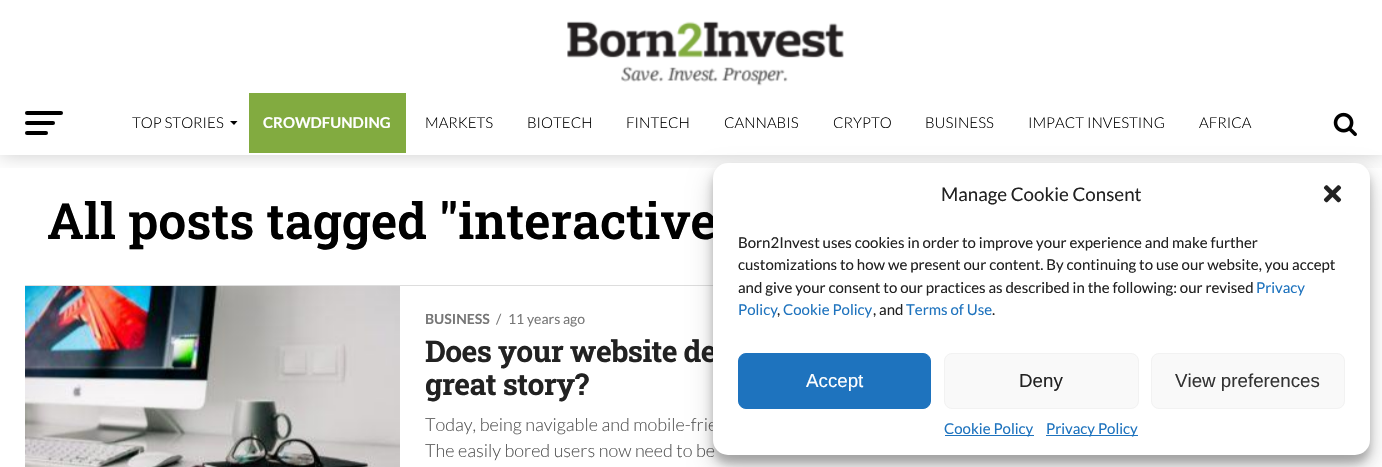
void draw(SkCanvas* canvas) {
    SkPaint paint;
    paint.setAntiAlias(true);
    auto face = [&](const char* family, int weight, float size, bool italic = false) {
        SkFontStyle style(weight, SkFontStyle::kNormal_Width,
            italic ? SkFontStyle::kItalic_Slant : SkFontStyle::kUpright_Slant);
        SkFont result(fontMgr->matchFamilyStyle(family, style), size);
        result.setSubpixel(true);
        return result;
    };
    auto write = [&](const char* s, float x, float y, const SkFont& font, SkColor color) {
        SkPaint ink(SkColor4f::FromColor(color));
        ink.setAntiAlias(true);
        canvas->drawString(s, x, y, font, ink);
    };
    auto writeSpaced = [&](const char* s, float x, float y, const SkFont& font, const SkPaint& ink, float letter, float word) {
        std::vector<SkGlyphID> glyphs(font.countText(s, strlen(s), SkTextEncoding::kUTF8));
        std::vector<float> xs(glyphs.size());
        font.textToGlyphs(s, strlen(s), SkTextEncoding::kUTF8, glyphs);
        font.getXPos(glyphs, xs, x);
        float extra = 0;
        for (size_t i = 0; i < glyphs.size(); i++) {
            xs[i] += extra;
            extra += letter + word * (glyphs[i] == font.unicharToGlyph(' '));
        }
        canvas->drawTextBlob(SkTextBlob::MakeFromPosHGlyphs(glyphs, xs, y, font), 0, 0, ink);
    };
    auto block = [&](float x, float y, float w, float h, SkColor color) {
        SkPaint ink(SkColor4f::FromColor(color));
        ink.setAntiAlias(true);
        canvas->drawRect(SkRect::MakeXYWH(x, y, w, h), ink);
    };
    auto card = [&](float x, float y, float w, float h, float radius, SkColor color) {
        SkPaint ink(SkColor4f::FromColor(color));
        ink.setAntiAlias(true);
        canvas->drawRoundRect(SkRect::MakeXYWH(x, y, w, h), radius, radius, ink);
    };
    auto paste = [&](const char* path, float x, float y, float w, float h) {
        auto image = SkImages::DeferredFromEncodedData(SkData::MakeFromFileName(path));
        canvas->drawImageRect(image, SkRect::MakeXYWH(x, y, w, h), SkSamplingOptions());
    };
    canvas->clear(SK_ColorWHITE);
    canvas->save();
    canvas->clipRect(SkRect::MakeXYWH(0, 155, 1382, 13));
    paint.setColor(SkColorSetARGB(51, 0, 0, 0));
    paint.setMaskFilter(SkMaskFilter::MakeBlur(kNormal_SkBlurStyle, 10));
    canvas->drawRect(SkRect::MakeXYWH(0, 93, 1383, 62), paint);
    paint.setMaskFilter(nullptr);
    canvas->restore();
    block(0, 77, 1382, 16, SK_ColorWHITE);
    paste("pic1.png", 567, 21, 277, 65);
    card(25, 111, 38, 4, 2, SK_ColorBLACK);
    card(25, 121, 30, 4, 2, SK_ColorBLACK);
    card(25, 131, 23, 4, 2, SK_ColorBLACK);
    auto kFont1 = face("Lato", 300, 15);
    write("TOP STORIES", 132, 128, kFont1, SK_ColorBLACK);
    paint.setColor(SK_ColorBLACK);
    canvas->drawPath(SkPathBuilder().moveTo(230, 121).lineTo(237.5f, 121).lineTo(234, 125).close().detach(), paint);
    block(249, 93, 157, 60, SkColorSetRGB(130, 171, 64));
    auto kFont2 = face("Lato", 700, 15);
    write("CROWDFUNDING", 263, 128, kFont2, SK_ColorWHITE);
    write("MARKETS", 425, 128, kFont1, SK_ColorBLACK);
    write("BIOTECH", 527, 128, kFont1, SK_ColorBLACK);
    write("FINTECH", 626, 128, kFont1, SK_ColorBLACK);
    write("CANNABIS", 724, 128, kFont1, SK_ColorBLACK);
    write("CRYPTO", 833, 128, kFont1, SK_ColorBLACK);
    write("BUSINESS", 925, 128, kFont1, SK_ColorBLACK);
    write("IMPACT INVESTING", 1028, 128, kFont1, SK_ColorBLACK);
    write("AFRICA", 1199, 128, kFont1, SK_ColorBLACK);
    paste("pic2.png", 1333, 112, 24, 25);
    auto kFont3 = face("Roboto Slab", 600, 50);
    write("All posts tagged \"interactive", 47, 239, kFont3, SK_ColorBLACK);
    block(25, 285, 688, 1, SkColorSetRGB(221, 221, 221));
    paste("pic3.png", 25, 286, 375, 181);
    auto kFont4 = face("Lato", 700, 14);
    write("BUSINESS", 425, 324, kFont4, SkColorSetRGB(119, 119, 119));
    auto kFont5 = face("Lato", 400, 14);
    write("/", 496, 324, kFont5, SkColorSetRGB(119, 119, 119));
    write("11 years ago", 508, 324, kFont5, SkColorSetRGB(119, 119, 119));
    auto kFont6 = face("Roboto Slab", 700, 30);
    paint.setColor(SkColorSetRGB(34, 34, 34));
    writeSpaced("Does your website de", 425, 362, kFont6, paint, -0.6f, 0);
    writeSpaced("great story?", 425, 395, kFont6, paint, -0.6f, 0);
    auto kFont7 = face("Lato", 300, 18);
    write("Today, being navigable and mobile-frie", 425, 431, kFont7, SkColorSetRGB(85, 85, 85));
    write("The easily bored users now need to be", 425, 457, kFont7, SkColorSetRGB(85, 85, 85));
    paint.setColor(SkColorSetARGB(59, 0, 0, 0));
    paint.setMaskFilter(SkMaskFilter::MakeBlur(kNormal_SkBlurStyle, 4));
    canvas->drawRoundRect(SkRect::MakeXYWH(713, 170, 657, 293), 15, 15, paint);
    paint.setMaskFilter(nullptr);
    paint.setColor(SkColorSetARGB(48, 0, 0, 0));
    paint.setMaskFilter(SkMaskFilter::MakeBlur(kNormal_SkBlurStyle, 12.5f));
    canvas->drawRoundRect(SkRect::MakeXYWH(713, 175, 657, 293), 15, 15, paint);
    paint.setMaskFilter(nullptr);
    card(713, 163, 657, 292, 15, SK_ColorWHITE);
    auto kFont8 = face("Lato", 400, 18.75f);
    write("Manage Cookie Consent", 941, 201, kFont8, SkColorSetRGB(34, 34, 34));
    paste("pic4.png", 1323, 185, 19, 18);
    auto kFont9 = face("Lato", 400, 15);
    write("Born2Invest uses cookies in order to improve your experience and make further", 738, 248, kFont9, SkColorSetRGB(34, 34, 34));
    write("customizations to how we present our content. By continuing to use our website, you accept", 738, 270, kFont9, SkColorSetRGB(34, 34, 34));
    write("and give your consent to our practices as described in the following: our revised", 738, 293, kFont9, SkColorSetRGB(34, 34, 34));
    write("Privacy", 1256, 293, kFont9, SkColorSetRGB(30, 115, 190));
    write("Policy", 738, 315, kFont9, SkColorSetRGB(30, 115, 190));
    write(",", 777, 315, kFont9, SkColorSetRGB(34, 34, 34));
    write("Cookie Policy", 783, 315, kFont9, SkColorSetRGB(30, 115, 190));
    write(", and", 873, 315, kFont9, SkColorSetRGB(34, 34, 34));
    write("Terms of Use", 906, 315, kFont9, SkColorSetRGB(30, 115, 190));
    write(".", 992, 315, kFont9, SkColorSetRGB(34, 34, 34));
    paint.setColor(SkColorSetRGB(30, 115, 190));
    canvas->drawRoundRect(SkRect::MakeXYWH(738.5f, 353.5f, 192, 55), 7.5f, 7.5f, paint);
    paint.setStyle(SkPaint::kStroke_Style);
    paint.setStrokeWidth(1);
    canvas->drawRoundRect(SkRect::MakeXYWH(738.5f, 353.5f, 192, 55), 7.5f, 7.5f, paint);
    auto kFont10 = face("Liberation Sans", 400, 18.75f);
    write("Accept", 806, 387, kFont10, SK_ColorWHITE);
    paint.setStyle(SkPaint::kFill_Style);
    paint.setColor(SkColorSetRGB(249, 249, 249));
    canvas->drawRoundRect(SkRect::MakeXYWH(944.5f, 353.5f, 194, 55), 7.5f, 7.5f, paint);
    paint.setStyle(SkPaint::kStroke_Style);
    paint.setColor(SkColorSetRGB(242, 242, 242));
    canvas->drawRoundRect(SkRect::MakeXYWH(944.5f, 353.5f, 194, 55), 7.5f, 7.5f, paint);
    write("Deny", 1019, 387, kFont10, SkColorSetRGB(34, 34, 34));
    paint.setStyle(SkPaint::kFill_Style);
    paint.setColor(SkColorSetRGB(249, 249, 249));
    canvas->drawRoundRect(SkRect::MakeXYWH(1151.5f, 353.5f, 193, 55), 7.5f, 7.5f, paint);
    paint.setStyle(SkPaint::kStroke_Style);
    paint.setColor(SkColorSetRGB(242, 242, 242));
    canvas->drawRoundRect(SkRect::MakeXYWH(1151.5f, 353.5f, 193, 55), 7.5f, 7.5f, paint);
    write("View preferences", 1175, 387, kFont10, SkColorSetRGB(51, 51, 51));
    block(945, 435, 89, 1, SkColorSetRGB(30, 115, 190));
    write("Cookie Policy", 944, 434, kFont9, SkColorSetRGB(30, 115, 190));
    block(1046, 435, 92, 1, SkColorSetRGB(30, 115, 190));
    write("Privacy Policy", 1046, 434, kFont9, SkColorSetRGB(30, 115, 190));
}
